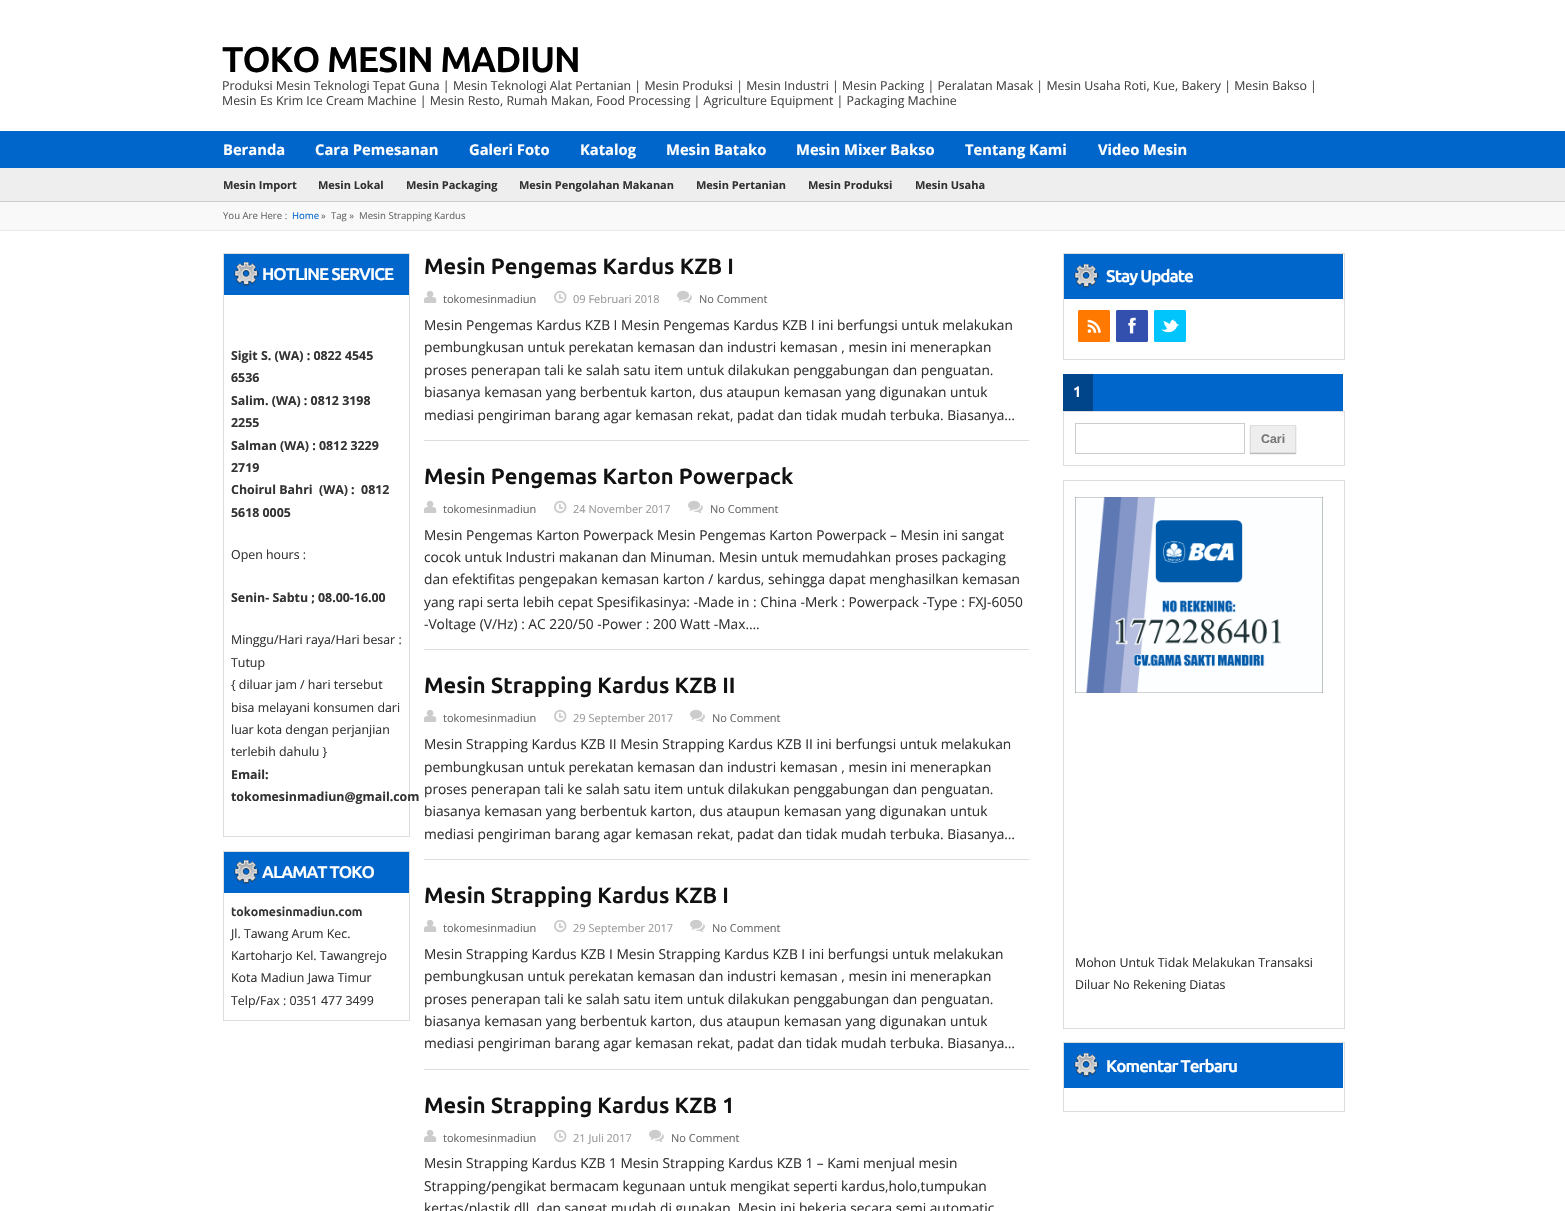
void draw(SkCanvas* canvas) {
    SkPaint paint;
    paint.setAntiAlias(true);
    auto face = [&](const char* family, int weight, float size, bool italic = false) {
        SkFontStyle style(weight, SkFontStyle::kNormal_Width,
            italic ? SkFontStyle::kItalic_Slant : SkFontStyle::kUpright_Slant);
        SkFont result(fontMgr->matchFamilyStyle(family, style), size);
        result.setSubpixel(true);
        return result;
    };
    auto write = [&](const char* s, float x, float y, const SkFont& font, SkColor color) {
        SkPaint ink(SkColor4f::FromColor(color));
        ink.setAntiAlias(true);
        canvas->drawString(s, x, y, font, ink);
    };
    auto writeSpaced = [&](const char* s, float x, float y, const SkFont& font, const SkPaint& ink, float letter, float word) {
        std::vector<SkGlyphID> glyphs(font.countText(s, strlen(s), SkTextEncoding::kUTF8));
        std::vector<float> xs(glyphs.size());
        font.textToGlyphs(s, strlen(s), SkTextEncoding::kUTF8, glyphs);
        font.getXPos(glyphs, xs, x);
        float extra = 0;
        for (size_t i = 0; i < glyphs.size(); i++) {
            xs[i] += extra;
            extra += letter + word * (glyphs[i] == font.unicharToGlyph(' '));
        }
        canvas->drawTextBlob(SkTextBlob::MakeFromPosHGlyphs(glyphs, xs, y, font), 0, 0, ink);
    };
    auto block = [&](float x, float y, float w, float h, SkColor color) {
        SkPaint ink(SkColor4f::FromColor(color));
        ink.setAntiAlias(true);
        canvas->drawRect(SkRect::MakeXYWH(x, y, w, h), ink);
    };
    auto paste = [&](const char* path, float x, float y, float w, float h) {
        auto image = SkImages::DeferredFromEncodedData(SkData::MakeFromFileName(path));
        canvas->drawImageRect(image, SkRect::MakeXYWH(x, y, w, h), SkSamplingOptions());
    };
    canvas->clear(SK_ColorWHITE);
    auto kFont1 = face("Ubuntu", 700, 35.75f);
    paint.setColor(SK_ColorBLACK);
    writeSpaced("TOKO MESIN MADIUN", 222, 72, kFont1, paint, -1, 0);
    auto kFont2 = face("Open Sans", 400, 12.38f);
    write("Produksi Mesin Teknologi Tepat Guna | Mesin Teknologi Alat Pertanian | Mesin Produksi | Mesin Industri | Mesin Packing | Peralatan Masak | Mesin Usaha Roti, Kue, Bakery | Mesin Bakso |", 222, 90, kFont2, SkColorSetRGB(68, 68, 68));
    write("Mesin Es Krim Ice Cream Machine | Mesin Resto, Rumah Makan, Food Processing | Agriculture Equipment | Packaging Machine", 222, 105, kFont2, SkColorSetRGB(68, 68, 68));
    block(0, 131, 1565, 37, SkColorSetRGB(0, 102, 204));
    auto kFont3 = face("Open Sans", 700, 14.75f);
    write("Beranda", 223, 155, kFont3, SK_ColorWHITE);
    write("Cara Pemesanan", 315, 155, kFont3, SK_ColorWHITE);
    write("Galeri Foto", 469, 155, kFont3, SK_ColorWHITE);
    write("Katalog", 580, 155, kFont3, SK_ColorWHITE);
    write("Mesin Batako", 666, 155, kFont3, SK_ColorWHITE);
    write("Mesin Mixer Bakso", 796, 155, kFont3, SK_ColorWHITE);
    write("Tentang Kami", 965, 155, kFont3, SK_ColorWHITE);
    write("Video Mesin", 1098, 155, kFont3, SK_ColorWHITE);
    block(0, 168, 1565, 33, SkColorSetRGB(238, 238, 238));
    block(0, 201, 1565, 1, SkColorSetRGB(204, 204, 204));
    auto kFont4 = face("Open Sans", 700, 11);
    write("Mesin Import", 223, 189, kFont4, SkColorSetRGB(51, 51, 51));
    write("Mesin Lokal", 318, 189, kFont4, SkColorSetRGB(51, 51, 51));
    write("Mesin Packaging", 406, 189, kFont4, SkColorSetRGB(51, 51, 51));
    write("Mesin Pengolahan Makanan", 519, 189, kFont4, SkColorSetRGB(51, 51, 51));
    write("Mesin Pertanian", 696, 189, kFont4, SkColorSetRGB(51, 51, 51));
    write("Mesin Produksi", 808, 189, kFont4, SkColorSetRGB(51, 51, 51));
    write("Mesin Usaha", 915, 189, kFont4, SkColorSetRGB(51, 51, 51));
    block(0, 202, 1565, 28, SkColorSetRGB(249, 249, 249));
    block(0, 230, 1565, 1, SkColorSetRGB(233, 233, 233));
    auto kFont5 = face("Open Sans", 400, 9.6f);
    write("You Are Here :", 223, 219, kFont5, SkColorSetRGB(102, 102, 102));
    write("Home", 292, 219, kFont5, SkColorSetRGB(0, 102, 204));
    write("»", 321, 219, kFont5, SkColorSetRGB(102, 102, 102));
    write("Tag »", 331, 219, kFont5, SkColorSetRGB(102, 102, 102));
    write("Mesin Strapping Kardus", 359, 219, kFont5, SkColorSetRGB(102, 102, 102));
    paint.setStyle(SkPaint::kStroke_Style);
    paint.setStrokeWidth(1);
    paint.setColor(SkColorSetRGB(221, 221, 221));
    canvas->drawRect(SkRect::MakeXYWH(223.5f, 253.5f, 186, 583), paint);
    block(224, 254, 185, 41, SkColorSetRGB(0, 102, 204));
    paste("pic1.png", 234, 262, 25, 25);
    auto kFont6 = face("Ubuntu", 700, 17);
    paint.setStyle(SkPaint::kFill_Style);
    paint.setColor(SK_ColorWHITE);
    writeSpaced("HOTLINE SERVICE", 262, 280, kFont6, paint, -1, 0);
    auto kFont7 = face("Open Sans", 700, 12.38f);
    write("Sigit S. (WA) : 0822 4545", 231, 360, kFont7, SkColorSetRGB(51, 51, 51));
    write("6536", 231, 382, kFont7, SkColorSetRGB(51, 51, 51));
    write("Salim. (WA) : 0812 3198", 231, 405, kFont7, SkColorSetRGB(51, 51, 51));
    write("2255", 231, 427, kFont7, SkColorSetRGB(51, 51, 51));
    write("Salman (WA) : 0812 3229", 231, 450, kFont7, SkColorSetRGB(51, 51, 51));
    write("2719", 231, 472, kFont7, SkColorSetRGB(51, 51, 51));
    write("Choirul Bahri", 231, 494, kFont7, SkColorSetRGB(51, 51, 51));
    write("(WA) :  0812", 319, 494, kFont7, SkColorSetRGB(51, 51, 51));
    write("5618 0005", 231, 517, kFont7, SkColorSetRGB(51, 51, 51));
    write("Open hours :", 231, 559, kFont2, SkColorSetRGB(51, 51, 51));
    write("Senin- Sabtu ; 08.00-16.00", 231, 602, kFont7, SkColorSetRGB(51, 51, 51));
    write("Minggu/Hari raya/Hari besar :", 231, 644, kFont2, SkColorSetRGB(51, 51, 51));
    write("Tutup", 231, 667, kFont2, SkColorSetRGB(51, 51, 51));
    write("{ diluar jam / hari tersebut", 231, 689, kFont2, SkColorSetRGB(51, 51, 51));
    write("bisa melayani konsumen dari", 231, 712, kFont2, SkColorSetRGB(51, 51, 51));
    write("luar kota dengan perjanjian", 231, 734, kFont2, SkColorSetRGB(51, 51, 51));
    write("terlebih dahulu }", 231, 756, kFont2, SkColorSetRGB(51, 51, 51));
    write("Email:", 231, 779, kFont7, SkColorSetRGB(51, 51, 51));
    write("tokomesinmadiun@gmail.com", 231, 801, kFont7, SkColorSetRGB(51, 51, 51));
    paint.setStyle(SkPaint::kStroke_Style);
    paint.setColor(SkColorSetRGB(221, 221, 221));
    canvas->drawRect(SkRect::MakeXYWH(223.5f, 851.5f, 186, 169), paint);
    block(224, 852, 185, 41, SkColorSetRGB(0, 102, 204));
    paste("pic1.png", 234, 860, 25, 25);
    paint.setStyle(SkPaint::kFill_Style);
    paint.setColor(SK_ColorWHITE);
    writeSpaced("ALAMAT TOKO", 262, 878, kFont6, paint, -1, 0);
    auto kFont8 = face("Ubuntu", 700, 12.38f);
    write("tokomesinmadiun.com", 231, 916, kFont8, SkColorSetRGB(51, 51, 51));
    write("Jl. Tawang Arum Kec.", 231, 938, kFont2, SkColorSetRGB(51, 51, 51));
    write("Kartoharjo Kel. Tawangrejo", 231, 960, kFont2, SkColorSetRGB(51, 51, 51));
    write("Kota Madiun Jawa Timur", 231, 982, kFont2, SkColorSetRGB(51, 51, 51));
    write("Telp/Fax : 0351 477 3499", 231, 1005, kFont2, SkColorSetRGB(51, 51, 51));
    block(424, 440, 605, 1, SkColorSetRGB(221, 221, 221));
    auto kFont9 = face("Ubuntu", 700, 22);
    write("Mesin Pengemas Kardus KZB I", 424, 274, kFont9, SkColorSetRGB(18, 18, 18));
    paste("pic2.png", 424, 290, 13, 13);
    auto kFont10 = face("Open Sans", 400, 11);
    write("tokomesinmadiun", 443, 303, kFont10, SkColorSetRGB(102, 102, 102));
    paste("pic3.png", 554, 290, 13, 14);
    write("09 Februari 2018", 573, 303, kFont10, SkColorSetRGB(153, 153, 153));
    paste("pic4.png", 677, 290, 15, 14);
    write("No Comment", 699, 303, kFont10, SkColorSetRGB(102, 102, 102));
    auto kFont11 = face("Open Sans", 400, 13.75f);
    write("Mesin Pengemas Kardus KZB I Mesin Pengemas Kardus KZB I ini berfungsi untuk melakukan", 424, 330, kFont11, SkColorSetRGB(51, 51, 51));
    write("pembungkusan untuk perekatan kemasan dan industri kemasan , mesin ini menerapkan", 424, 352, kFont11, SkColorSetRGB(51, 51, 51));
    write("proses penerapan tali ke salah satu item untuk dilakukan penggabungan dan penguatan.", 424, 375, kFont11, SkColorSetRGB(51, 51, 51));
    write("biasanya kemasan yang berbentuk karton, dus ataupun kemasan yang digunakan untuk", 424, 397, kFont11, SkColorSetRGB(51, 51, 51));
    write("mediasi pengiriman barang agar kemasan rekat, padat dan tidak mudah terbuka. Biasanya…", 424, 420, kFont11, SkColorSetRGB(51, 51, 51));
    block(424, 649, 605, 1, SkColorSetRGB(221, 221, 221));
    write("Mesin Pengemas Karton Powerpack", 424, 484, kFont9, SkColorSetRGB(18, 18, 18));
    paste("pic2.png", 424, 500, 13, 13);
    write("tokomesinmadiun", 443, 513, kFont10, SkColorSetRGB(102, 102, 102));
    paste("pic3.png", 554, 500, 13, 14);
    write("24 November 2017", 573, 513, kFont10, SkColorSetRGB(153, 153, 153));
    paste("pic4.png", 688, 500, 15, 14);
    write("No Comment", 710, 513, kFont10, SkColorSetRGB(102, 102, 102));
    write("Mesin Pengemas Karton Powerpack Mesin Pengemas Karton Powerpack – Mesin ini sangat", 424, 540, kFont11, SkColorSetRGB(51, 51, 51));
    write("cocok untuk Industri makanan dan Minuman. Mesin untuk memudahkan proses packaging", 424, 562, kFont11, SkColorSetRGB(51, 51, 51));
    write("dan efektifitas pengepakan kemasan karton / kardus, sehingga dapat menghasilkan kemasan", 424, 584, kFont11, SkColorSetRGB(51, 51, 51));
    write("yang rapi serta lebih cepat Spesifikasinya: -Made in : China -Merk : Powerpack -Type : FXJ-6050", 424, 607, kFont11, SkColorSetRGB(51, 51, 51));
    write("-Voltage (V/Hz) : AC 220/50 -Power : 200 Watt -Max….", 424, 629, kFont11, SkColorSetRGB(51, 51, 51));
    block(424, 859, 605, 1, SkColorSetRGB(221, 221, 221));
    write("Mesin Strapping Kardus KZB II", 424, 693, kFont9, SkColorSetRGB(18, 18, 18));
    paste("pic2.png", 424, 709, 13, 13);
    write("tokomesinmadiun", 443, 722, kFont10, SkColorSetRGB(102, 102, 102));
    paste("pic3.png", 554, 709, 13, 14);
    write("29 September 2017", 573, 722, kFont10, SkColorSetRGB(153, 153, 153));
    paste("pic4.png", 690, 709, 15, 14);
    write("No Comment", 712, 722, kFont10, SkColorSetRGB(102, 102, 102));
    write("Mesin Strapping Kardus KZB II Mesin Strapping Kardus KZB II ini berfungsi untuk melakukan", 424, 749, kFont11, SkColorSetRGB(51, 51, 51));
    write("pembungkusan untuk perekatan kemasan dan industri kemasan , mesin ini menerapkan", 424, 772, kFont11, SkColorSetRGB(51, 51, 51));
    write("proses penerapan tali ke salah satu item untuk dilakukan penggabungan dan penguatan.", 424, 794, kFont11, SkColorSetRGB(51, 51, 51));
    write("biasanya kemasan yang berbentuk karton, dus ataupun kemasan yang digunakan untuk", 424, 816, kFont11, SkColorSetRGB(51, 51, 51));
    write("mediasi pengiriman barang agar kemasan rekat, padat dan tidak mudah terbuka. Biasanya…", 424, 839, kFont11, SkColorSetRGB(51, 51, 51));
    block(424, 1069, 605, 1, SkColorSetRGB(221, 221, 221));
    write("Mesin Strapping Kardus KZB I", 424, 903, kFont9, SkColorSetRGB(18, 18, 18));
    paste("pic2.png", 424, 919, 13, 13);
    write("tokomesinmadiun", 443, 932, kFont10, SkColorSetRGB(102, 102, 102));
    paste("pic3.png", 554, 919, 13, 14);
    write("29 September 2017", 573, 932, kFont10, SkColorSetRGB(153, 153, 153));
    paste("pic4.png", 690, 919, 15, 14);
    write("No Comment", 712, 932, kFont10, SkColorSetRGB(102, 102, 102));
    write("Mesin Strapping Kardus KZB I Mesin Strapping Kardus KZB I ini berfungsi untuk melakukan", 424, 959, kFont11, SkColorSetRGB(51, 51, 51));
    write("pembungkusan untuk perekatan kemasan dan industri kemasan , mesin ini menerapkan", 424, 981, kFont11, SkColorSetRGB(51, 51, 51));
    write("proses penerapan tali ke salah satu item untuk dilakukan penggabungan dan penguatan.", 424, 1004, kFont11, SkColorSetRGB(51, 51, 51));
    write("biasanya kemasan yang berbentuk karton, dus ataupun kemasan yang digunakan untuk", 424, 1026, kFont11, SkColorSetRGB(51, 51, 51));
    write("mediasi pengiriman barang agar kemasan rekat, padat dan tidak mudah terbuka. Biasanya…", 424, 1048, kFont11, SkColorSetRGB(51, 51, 51));
    write("Mesin Strapping Kardus KZB 1", 424, 1113, kFont9, SkColorSetRGB(18, 18, 18));
    paste("pic2.png", 424, 1129, 13, 13);
    write("tokomesinmadiun", 443, 1142, kFont10, SkColorSetRGB(102, 102, 102));
    paste("pic3.png", 554, 1129, 13, 14);
    write("21 Juli 2017", 573, 1142, kFont10, SkColorSetRGB(153, 153, 153));
    paste("pic4.png", 649, 1129, 15, 14);
    write("No Comment", 671, 1142, kFont10, SkColorSetRGB(102, 102, 102));
    write("Mesin Strapping Kardus KZB 1 Mesin Strapping Kardus KZB 1 – Kami menjual mesin", 424, 1168, kFont11, SkColorSetRGB(51, 51, 51));
    write("Strapping/pengikat bermacam kegunaan untuk mengikat seperti kardus,holo,tumpukan", 424, 1191, kFont11, SkColorSetRGB(51, 51, 51));
    write("kertas/plastik dll. dan sangat mudah di gunakan. Mesin ini bekerja secara semi automatic", 424, 1213, kFont11, SkColorSetRGB(51, 51, 51));
    paint.setStyle(SkPaint::kStroke_Style);
    paint.setColor(SkColorSetRGB(221, 221, 221));
    canvas->drawRect(SkRect::MakeXYWH(1063.5f, 253.5f, 281, 106), paint);
    block(1064, 254, 279, 45, SkColorSetRGB(0, 102, 204));
    paste("pic1.png", 1074, 264, 25, 25);
    paint.setStyle(SkPaint::kFill_Style);
    paint.setColor(SK_ColorWHITE);
    writeSpaced("Stay Update", 1106, 282, kFont6, paint, -1, 0);
    paste("pic5.png", 1078, 310, 32, 32);
    paste("pic6.png", 1116, 310, 32, 32);
    paste("pic7.png", 1154, 310, 32, 32);
    block(1093, 374, 250, 37, SkColorSetRGB(0, 102, 204));
    block(1063, 374, 30, 37, SkColorSetRGB(0, 69, 138));
    auto kFont12 = face("Ubuntu", 700, 15);
    write("1", 1073, 397, kFont12, SK_ColorWHITE);
    paint.setStyle(SkPaint::kStroke_Style);
    paint.setColor(SkColorSetRGB(221, 221, 221));
    canvas->drawRect(SkRect::MakeXYWH(1063.5f, 411.5f, 281, 54), paint);
    paint.setColor(SkColorSetRGB(204, 204, 204));
    canvas->drawRect(SkRect::MakeXYWH(1075.5f, 423.5f, 169, 30), paint);
    paint.setStyle(SkPaint::kFill_Style);
    paint.setColor(SkColorSetRGB(187, 187, 187));
    paint.setMaskFilter(SkMaskFilter::MakeBlur(kNormal_SkBlurStyle, 0.5f));
    canvas->drawRect(SkRect::MakeXYWH(1250, 426, 46, 28), paint);
    paint.setMaskFilter(nullptr);
    paint.setColor(SkColorSetRGB(238, 238, 238));
    canvas->drawRect(SkRect::MakeXYWH(1250.5f, 425.5f, 45, 27), paint);
    paint.setStyle(SkPaint::kStroke_Style);
    paint.setColor(SkColorSetRGB(221, 221, 221));
    canvas->drawRect(SkRect::MakeXYWH(1250.5f, 425.5f, 45, 27), paint);
    auto kFont13 = face("Liberation Sans", 700, 12.38f);
    write("Cari", 1261, 443, kFont13, SkColorSetRGB(119, 119, 119));
    canvas->drawRect(SkRect::MakeXYWH(1063.5f, 480.5f, 281, 548), paint);
    paste("pic8.png", 1075, 497, 248, 196);
    write("Mohon Untuk Tidak Melakukan Transaksi", 1075, 967, kFont2, SkColorSetRGB(51, 51, 51));
    write("Diluar No Rekening Diatas", 1075, 989, kFont2, SkColorSetRGB(51, 51, 51));
    canvas->drawRect(SkRect::MakeXYWH(1063.5f, 1042.5f, 281, 69), paint);
    block(1064, 1043, 279, 45, SkColorSetRGB(0, 102, 204));
    paste("pic1.png", 1074, 1053, 25, 25);
    paint.setStyle(SkPaint::kFill_Style);
    paint.setColor(SK_ColorWHITE);
    writeSpaced("Komentar Terbaru", 1106, 1072, kFont6, paint, -1, 0);
}
